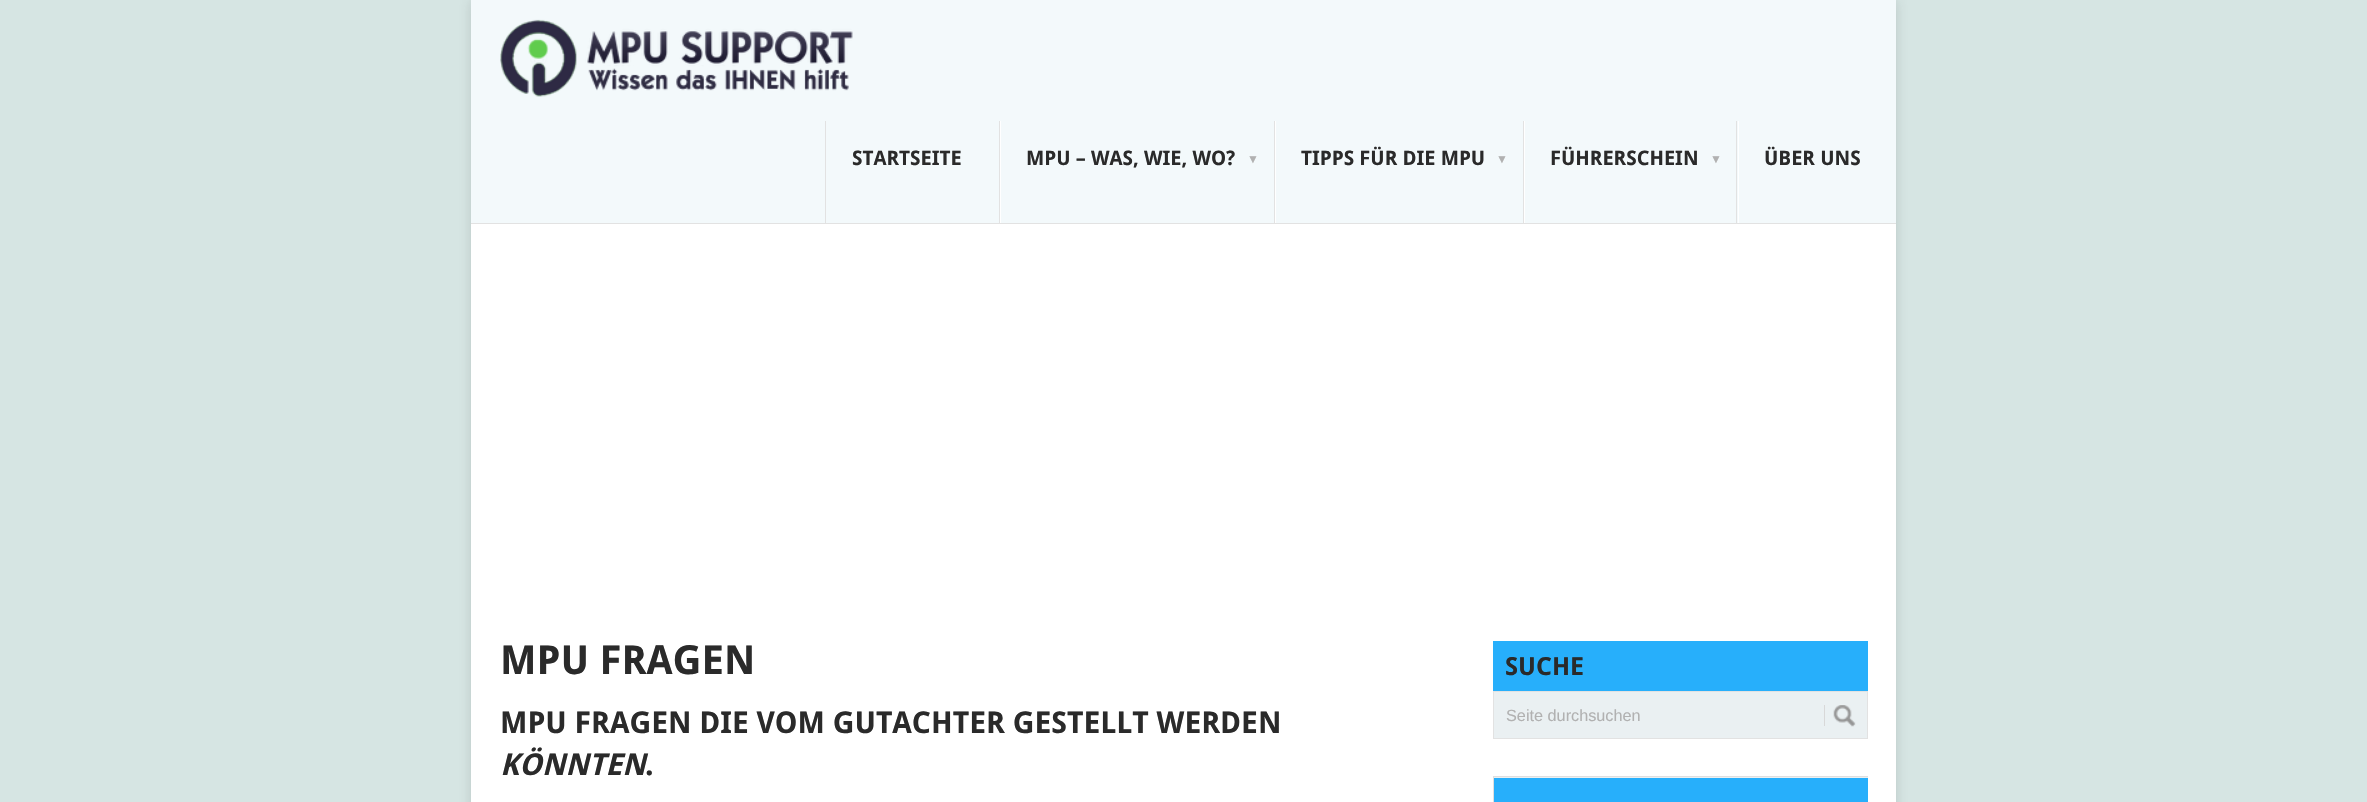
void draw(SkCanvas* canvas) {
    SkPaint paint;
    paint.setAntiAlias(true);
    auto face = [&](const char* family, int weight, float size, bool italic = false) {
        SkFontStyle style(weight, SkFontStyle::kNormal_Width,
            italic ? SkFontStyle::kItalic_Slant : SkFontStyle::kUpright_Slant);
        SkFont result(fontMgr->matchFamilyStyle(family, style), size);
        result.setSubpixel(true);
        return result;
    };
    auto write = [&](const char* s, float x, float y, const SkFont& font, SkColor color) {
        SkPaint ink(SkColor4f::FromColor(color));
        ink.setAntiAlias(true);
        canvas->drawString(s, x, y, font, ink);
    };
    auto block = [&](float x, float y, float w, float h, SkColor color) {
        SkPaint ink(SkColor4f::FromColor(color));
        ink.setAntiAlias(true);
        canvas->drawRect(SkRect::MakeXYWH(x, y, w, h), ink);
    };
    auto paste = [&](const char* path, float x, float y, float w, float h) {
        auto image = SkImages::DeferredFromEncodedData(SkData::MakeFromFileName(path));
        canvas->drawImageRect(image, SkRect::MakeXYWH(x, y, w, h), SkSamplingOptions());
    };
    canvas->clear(SkColorSetRGB(214, 229, 227));
    paint.setColor(SkColorSetARGB(43, 50, 50, 50));
    paint.setMaskFilter(SkMaskFilter::MakeBlur(kNormal_SkBlurStyle, 6));
    canvas->drawRect(SkRect::MakeXYWH(471, 0, 1425, 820), paint);
    paint.setMaskFilter(nullptr);
    block(471, 224, 1425, 578, SK_ColorWHITE);
    block(471, 0, 1425, 223, SkColorSetRGB(243, 249, 251));
    paste("pic1.png", 500, 19, 353, 78);
    block(999, 121, 1, 103, SkColorSetRGB(226, 226, 226));
    block(825, 121, 1, 103, SkColorSetRGB(226, 226, 226));
    auto kFont1 = face("Droid Sans", 700, 20);
    write("STARTSEITE", 852, 165, kFont1, SkColorSetRGB(42, 42, 42));
    block(1274, 121, 1, 103, SkColorSetRGB(226, 226, 226));
    block(1000, 121, 1, 103, SK_ColorWHITE);
    write("MPU – WAS, WIE, WO?", 1026, 165, kFont1, SkColorSetRGB(42, 42, 42));
    auto kFont2 = face("Liberation Sans", 700, 12);
    write("▼", 1247, 163, kFont2, SkColorSetRGB(177, 177, 177));
    block(1523, 121, 1, 103, SkColorSetRGB(226, 226, 226));
    block(1275, 121, 1, 103, SK_ColorWHITE);
    write("TIPPS FÜR DIE MPU", 1301, 165, kFont1, SkColorSetRGB(42, 42, 42));
    write("▼", 1496, 163, kFont2, SkColorSetRGB(177, 177, 177));
    block(1736, 121, 1, 103, SkColorSetRGB(226, 226, 226));
    block(1524, 121, 1, 103, SK_ColorWHITE);
    write("FÜHRERSCHEIN", 1550, 165, kFont1, SkColorSetRGB(42, 42, 42));
    write("▼", 1710, 163, kFont2, SkColorSetRGB(177, 177, 177));
    block(1738, 121, 1, 103, SK_ColorWHITE);
    write("ÜBER UNS", 1764, 165, kFont1, SkColorSetRGB(42, 42, 42));
    block(471, 223, 1425, 1, SkColorSetRGB(226, 226, 226));
    auto kFont3 = face("Droid Sans", 700, 40);
    write("MPU FRAGEN", 500, 674, kFont3, SkColorSetRGB(42, 42, 42));
    auto kFont4 = face("Droid Sans", 700, 30);
    write("MPU FRAGEN DIE VOM GUTACHTER GESTELLT WERDEN", 500, 733, kFont4, SkColorSetRGB(42, 42, 42));
    auto kFont5 = face("Droid Sans", 700, 30, true);
    write("KÖNNTEN", 500, 775, kFont5, SkColorSetRGB(42, 42, 42));
    write(".", 645, 775, kFont4, SkColorSetRGB(42, 42, 42));
    block(1493, 641, 375, 50, SkColorSetRGB(39, 175, 251));
    auto kFont6 = face("Droid Sans", 700, 25);
    write("SUCHE", 1505, 675, kFont6, SkColorSetRGB(42, 42, 42));
    paint.setColor(SkColorSetRGB(234, 240, 242));
    canvas->drawRect(SkRect::MakeXYWH(1493.5f, 691.5f, 374, 47), paint);
    paint.setStyle(SkPaint::kStroke_Style);
    paint.setStrokeWidth(1);
    paint.setColor(SkColorSetRGB(226, 226, 226));
    canvas->drawRect(SkRect::MakeXYWH(1493.5f, 691.5f, 374, 47), paint);
    auto kFont7 = face("Liberation Sans", 400, 16.25f);
    write("Seite durchsuchen", 1506, 721, kFont7, SkColorSetRGB(177, 177, 177));
    paste("pic2.png", 1833, 705, 23, 22);
    block(1824, 705, 1, 21, SkColorSetRGB(216, 216, 216));
    block(1494, 777, 374, 1, SkColorSetRGB(234, 240, 242));
    canvas->save();
    canvas->clipRect(SkRect::MakeXYWH(500, 605, 1368, 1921));
    paint.setColor(SkColorSetRGB(224, 222, 222));
    canvas->drawRect(SkRect::MakeXYWH(1493.5f, 776.5f, 376, 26), paint);
    canvas->restore();
    block(1494, 778, 374, 24, SkColorSetRGB(39, 175, 251));
}
